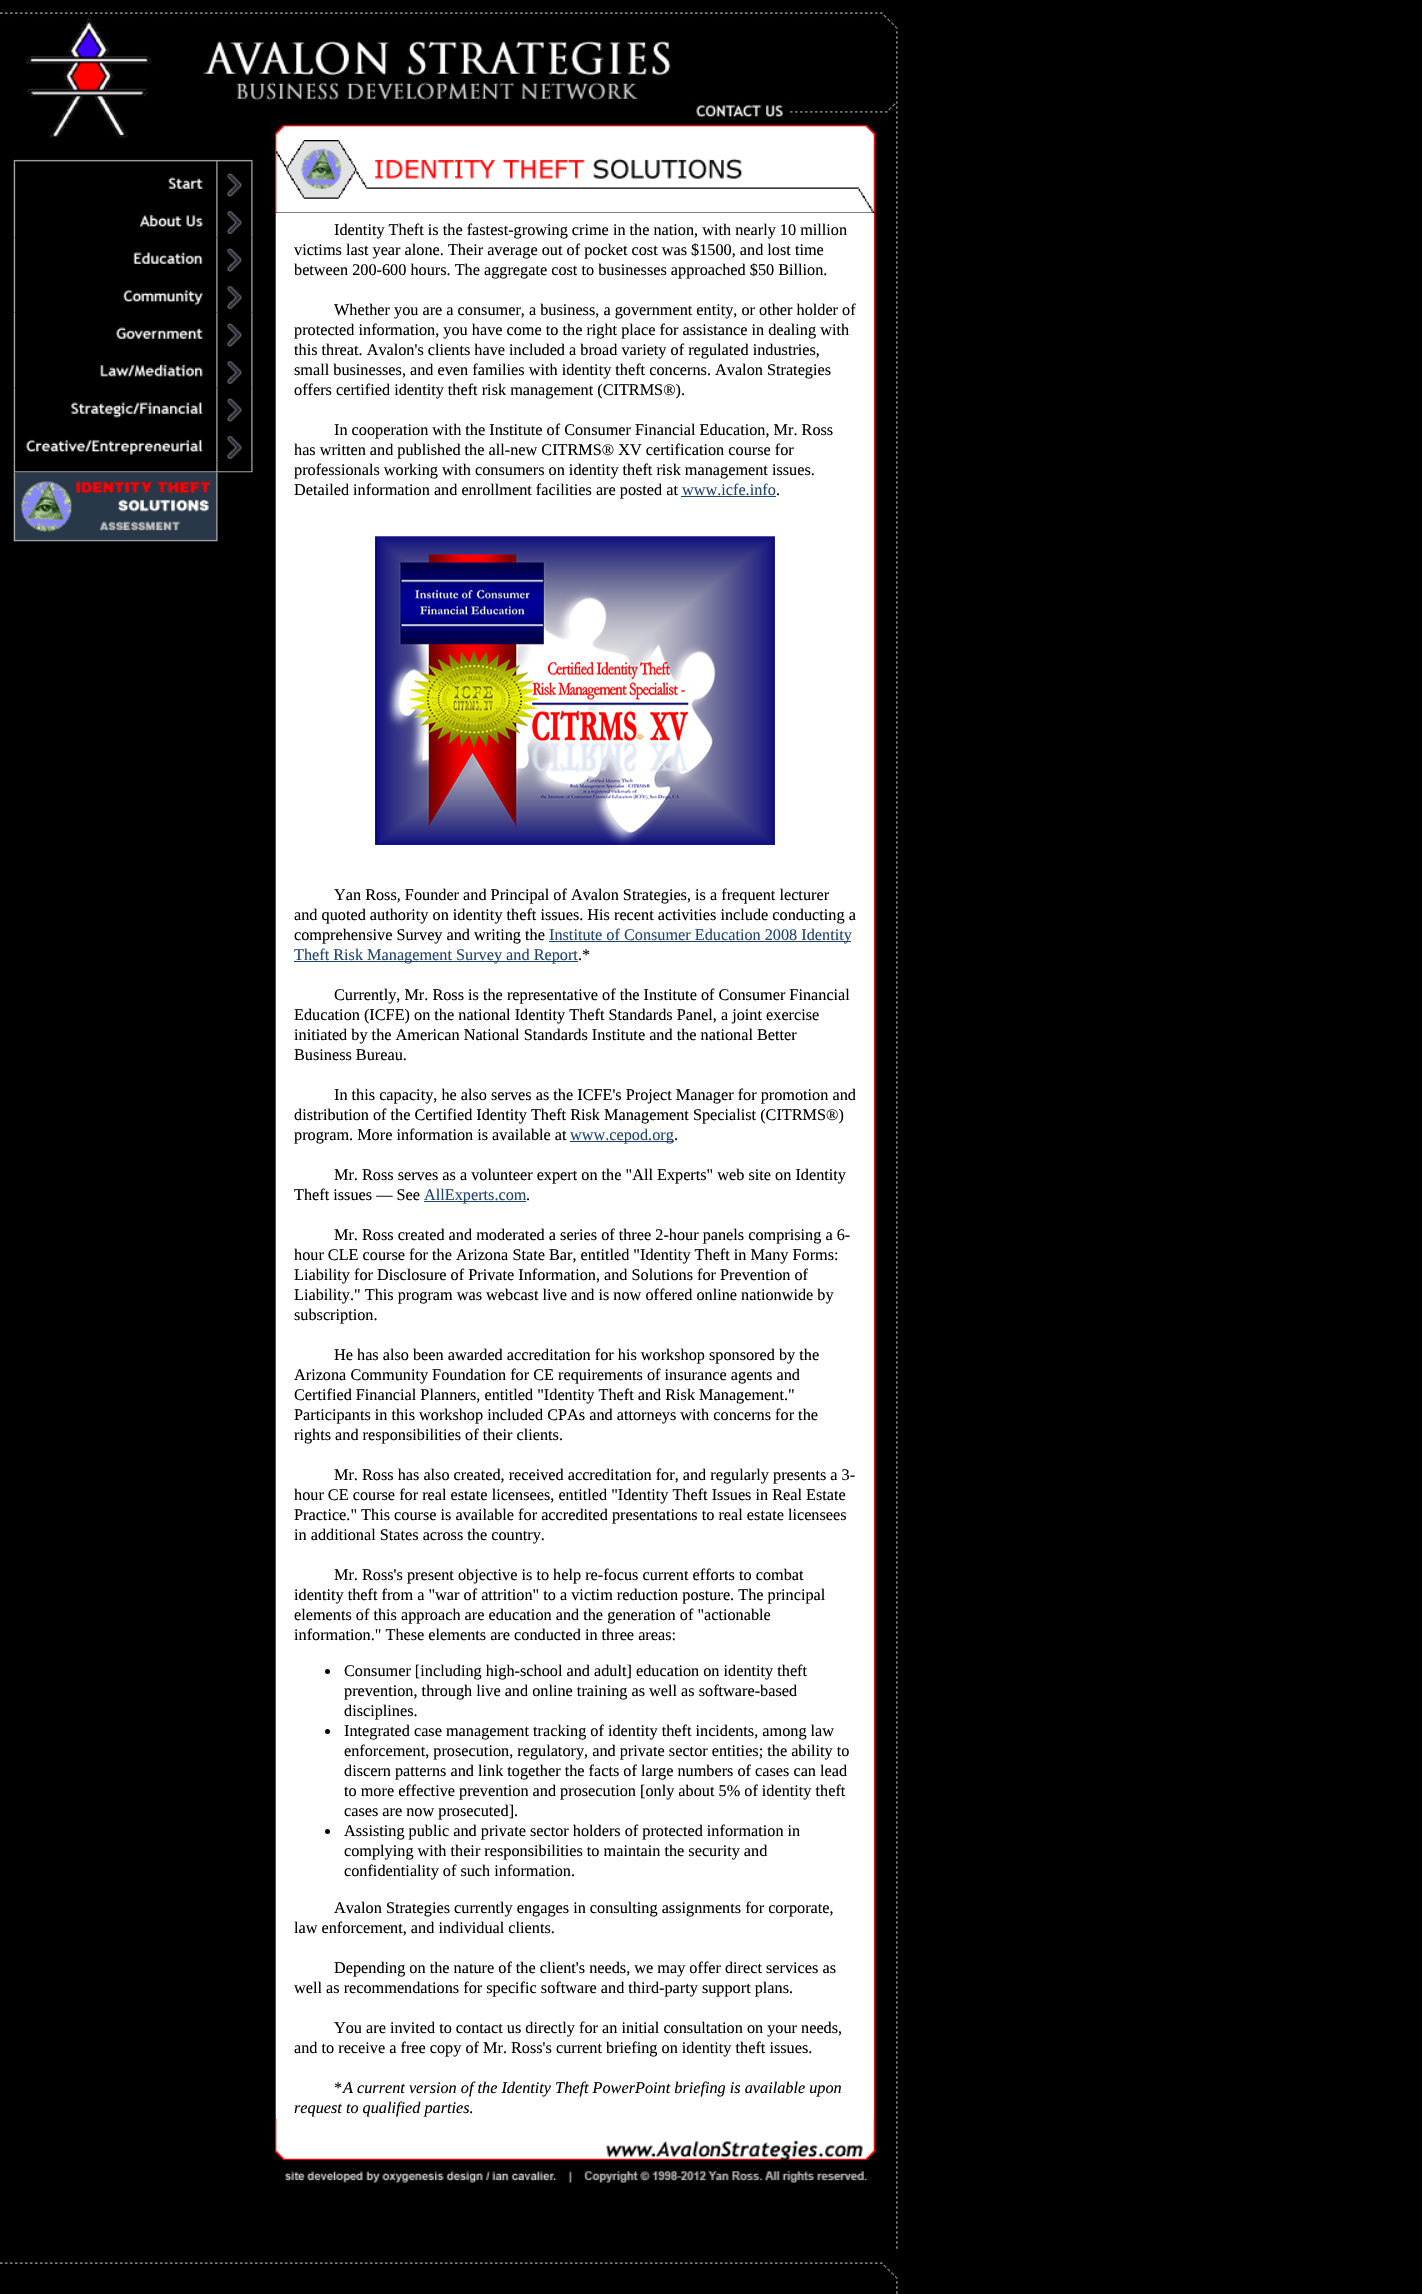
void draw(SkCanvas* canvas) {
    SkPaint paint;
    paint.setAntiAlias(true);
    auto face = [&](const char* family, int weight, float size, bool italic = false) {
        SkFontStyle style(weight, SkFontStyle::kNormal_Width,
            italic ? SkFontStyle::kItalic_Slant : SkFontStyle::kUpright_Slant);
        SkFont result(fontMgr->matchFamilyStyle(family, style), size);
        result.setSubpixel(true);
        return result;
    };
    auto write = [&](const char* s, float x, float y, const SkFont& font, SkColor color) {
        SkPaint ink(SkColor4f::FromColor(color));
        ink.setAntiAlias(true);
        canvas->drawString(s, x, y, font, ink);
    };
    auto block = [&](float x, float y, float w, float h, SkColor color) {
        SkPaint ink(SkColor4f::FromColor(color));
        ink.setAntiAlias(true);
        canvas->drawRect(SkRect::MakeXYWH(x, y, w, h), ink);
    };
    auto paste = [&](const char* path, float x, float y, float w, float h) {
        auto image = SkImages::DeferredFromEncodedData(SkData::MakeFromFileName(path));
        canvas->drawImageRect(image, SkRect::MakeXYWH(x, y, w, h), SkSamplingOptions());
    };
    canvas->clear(SK_ColorBLACK);
    paste("pic1.png", 0, 12, 898, 2282);
    paste("pic2.png", 0, 12, 875, 128);
    paste("pic3.png", 13, 159, 240, 4);
    paste("pic4.png", 13, 162, 240, 38);
    paste("pic5.png", 13, 200, 240, 38);
    paste("pic6.png", 13, 237, 240, 38);
    paste("pic7.png", 13, 275, 240, 38);
    paste("pic8.png", 13, 312, 240, 38);
    paste("pic9.png", 13, 350, 240, 38);
    paste("pic10.png", 13, 387, 240, 38);
    paste("pic11.png", 13, 425, 240, 38);
    paste("pic12.png", 13, 462, 240, 11);
    paste("pic13.png", 12, 472, 241, 70);
    paste("pic14.png", 275, 140, 600, 73);
    block(275, 213, 1, 1906, SkColorSetRGB(255, 0, 0));
    block(276, 213, 598, 1906, SK_ColorWHITE);
    block(874, 213, 1, 1906, SkColorSetRGB(255, 0, 0));
    auto kFont1 = face("Liberation Serif", 400, 16.25f);
    write("Identity Theft is the fastest-growing crime in the nation, with nearly 10 million", 334, 235, kFont1, SK_ColorBLACK);
    write("victims last year alone. Their average out of pocket cost was $1500, and lost time", 294, 255, kFont1, SK_ColorBLACK);
    write("between 200-600 hours. The aggregate cost to businesses approached $50 Billion.", 294, 275, kFont1, SK_ColorBLACK);
    write("Whether you are a consumer, a business, a government entity, or other holder of", 334, 315, kFont1, SK_ColorBLACK);
    write("protected information, you have come to the right place for assistance in dealing with", 294, 335, kFont1, SK_ColorBLACK);
    write("this threat. Avalon's clients have included a broad variety of regulated industries,", 294, 355, kFont1, SK_ColorBLACK);
    write("small businesses, and even families with identity theft concerns. Avalon Strategies", 294, 375, kFont1, SK_ColorBLACK);
    write("offers certified identity theft risk management (CITRMS®).", 294, 395, kFont1, SK_ColorBLACK);
    write("In cooperation with the Institute of Consumer Financial Education, Mr. Ross", 334, 435, kFont1, SK_ColorBLACK);
    write("has written and published the all-new CITRMS® XV certification course for", 294, 455, kFont1, SK_ColorBLACK);
    write("professionals working with consumers on identity theft risk management issues.", 294, 475, kFont1, SK_ColorBLACK);
    write("Detailed information and enrollment facilities are posted at", 294, 495, kFont1, SK_ColorBLACK);
    write("www.icfe.info", 682, 495, kFont1, SkColorSetRGB(32, 68, 112));
    block(681, 496, 95, 1, SkColorSetRGB(32, 68, 112));
    write(".", 776, 495, kFont1, SK_ColorBLACK);
    paste("pic15.png", 375, 536, 400, 309);
    write("Yan Ross, Founder and Principal of Avalon Strategies, is a frequent lecturer", 334, 900, kFont1, SK_ColorBLACK);
    write("and quoted authority on identity theft issues. His recent activities include conducting a", 294, 920, kFont1, SK_ColorBLACK);
    write("comprehensive Survey and writing the", 294, 940, kFont1, SK_ColorBLACK);
    block(549, 941, 302, 1, SkColorSetRGB(32, 68, 112));
    write("Institute of Consumer Education 2008 Identity", 549, 940, kFont1, SkColorSetRGB(32, 68, 112));
    block(294, 961, 284, 1, SkColorSetRGB(32, 68, 112));
    write("Theft Risk Management Survey and Report", 294, 960, kFont1, SkColorSetRGB(32, 68, 112));
    write(".*", 578, 960, kFont1, SK_ColorBLACK);
    write("Currently, Mr. Ross is the representative of the Institute of Consumer Financial", 334, 1000, kFont1, SK_ColorBLACK);
    write("Education (ICFE) on the national Identity Theft Standards Panel, a joint exercise", 294, 1020, kFont1, SK_ColorBLACK);
    write("initiated by the American National Standards Institute and the national Better", 294, 1040, kFont1, SK_ColorBLACK);
    write("Business Bureau.", 294, 1060, kFont1, SK_ColorBLACK);
    write("In this capacity, he also serves as the ICFE's Project Manager for promotion and", 334, 1100, kFont1, SK_ColorBLACK);
    write("distribution of the Certified Identity Theft Risk Management Specialist (CITRMS®)", 294, 1120, kFont1, SK_ColorBLACK);
    write("program. More information is available at", 294, 1140, kFont1, SK_ColorBLACK);
    block(570, 1141, 104, 1, SkColorSetRGB(32, 68, 112));
    write("www.cepod.org", 570, 1140, kFont1, SkColorSetRGB(32, 68, 112));
    write(".", 674, 1140, kFont1, SK_ColorBLACK);
    write("Mr. Ross serves as a volunteer expert on the \"All Experts\" web site on Identity", 334, 1180, kFont1, SK_ColorBLACK);
    write("Theft issues — See", 294, 1200, kFont1, SK_ColorBLACK);
    block(424, 1201, 102, 1, SkColorSetRGB(32, 68, 112));
    write("AllExperts.com", 424, 1200, kFont1, SkColorSetRGB(32, 68, 112));
    write(".", 526, 1200, kFont1, SK_ColorBLACK);
    write("Mr. Ross created and moderated a series of three 2-hour panels comprising a 6-", 334, 1240, kFont1, SK_ColorBLACK);
    write("hour CLE course for the Arizona State Bar, entitled \"Identity Theft in Many Forms:", 294, 1260, kFont1, SK_ColorBLACK);
    write("Liability for Disclosure of Private Information, and Solutions for Prevention of", 294, 1280, kFont1, SK_ColorBLACK);
    write("Liability.\" This program was webcast live and is now offered online nationwide by", 294, 1300, kFont1, SK_ColorBLACK);
    write("subscription.", 294, 1320, kFont1, SK_ColorBLACK);
    write("He has also been awarded accreditation for his workshop sponsored by the", 334, 1360, kFont1, SK_ColorBLACK);
    write("Arizona Community Foundation for CE requirements of insurance agents and", 294, 1380, kFont1, SK_ColorBLACK);
    write("Certified Financial Planners, entitled \"Identity Theft and Risk Management.\"", 294, 1400, kFont1, SK_ColorBLACK);
    write("Participants in this workshop included CPAs and attorneys with concerns for the", 294, 1420, kFont1, SK_ColorBLACK);
    write("rights and responsibilities of their clients.", 294, 1440, kFont1, SK_ColorBLACK);
    write("Mr. Ross has also created, received accreditation for, and regularly presents a 3-", 334, 1480, kFont1, SK_ColorBLACK);
    write("hour CE course for real estate licensees, entitled \"Identity Theft Issues in Real Estate", 294, 1500, kFont1, SK_ColorBLACK);
    write("Practice.\" This course is available for accredited presentations to real estate licensees", 294, 1520, kFont1, SK_ColorBLACK);
    write("in additional States across the country.", 294, 1540, kFont1, SK_ColorBLACK);
    write("Mr. Ross's present objective is to help re-focus current efforts to combat", 334, 1580, kFont1, SK_ColorBLACK);
    write("identity theft from a \"war of attrition\" to a victim reduction posture. The principal", 294, 1600, kFont1, SK_ColorBLACK);
    write("elements of this approach are education and the generation of \"actionable", 294, 1620, kFont1, SK_ColorBLACK);
    write("information.\" These elements are conducted in three areas:", 294, 1640, kFont1, SK_ColorBLACK);
    paint.setColor(SK_ColorBLACK);
    canvas->drawCircle(327.5f, 1671.5f, 2.5f, paint);
    write("Consumer [including high-school and adult] education on identity theft", 344, 1676, kFont1, SK_ColorBLACK);
    write("prevention, through live and online training as well as software-based", 344, 1696, kFont1, SK_ColorBLACK);
    write("disciplines.", 344, 1716, kFont1, SK_ColorBLACK);
    canvas->drawCircle(327.5f, 1731.5f, 2.5f, paint);
    write("Integrated case management tracking of identity theft incidents, among law", 344, 1736, kFont1, SK_ColorBLACK);
    write("enforcement, prosecution, regulatory, and private sector entities; the ability to", 344, 1756, kFont1, SK_ColorBLACK);
    write("discern patterns and link together the facts of large numbers of cases can lead", 344, 1776, kFont1, SK_ColorBLACK);
    write("to more effective prevention and prosecution [only about 5% of identity theft", 344, 1796, kFont1, SK_ColorBLACK);
    write("cases are now prosecuted].", 344, 1816, kFont1, SK_ColorBLACK);
    canvas->drawCircle(327.5f, 1831.5f, 2.5f, paint);
    write("Assisting public and private sector holders of protected information in", 344, 1836, kFont1, SK_ColorBLACK);
    write("complying with their responsibilities to maintain the security and", 344, 1856, kFont1, SK_ColorBLACK);
    write("confidentiality of such information.", 344, 1876, kFont1, SK_ColorBLACK);
    write("Avalon Strategies currently engages in consulting assignments for corporate,", 334, 1913, kFont1, SK_ColorBLACK);
    write("law enforcement, and individual clients.", 294, 1933, kFont1, SK_ColorBLACK);
    write("Depending on the nature of the client's needs, we may offer direct services as", 334, 1973, kFont1, SK_ColorBLACK);
    write("well as recommendations for specific software and third-party support plans.", 294, 1993, kFont1, SK_ColorBLACK);
    write("You are invited to contact us directly for an initial consultation on your needs,", 334, 2033, kFont1, SK_ColorBLACK);
    write("and to receive a free copy of Mr. Ross's current briefing on identity theft issues.", 294, 2053, kFont1, SK_ColorBLACK);
    write("*", 334, 2093, kFont1, SK_ColorBLACK);
    auto kFont2 = face("Liberation Serif", 400, 16.25f, true);
    write("A current version of the Identity Theft PowerPoint briefing is available upon", 343, 2093, kFont2, SK_ColorBLACK);
    write("request to qualified parties.", 294, 2113, kFont2, SK_ColorBLACK);
    paste("pic16.png", 275, 2118, 600, 65);
}
